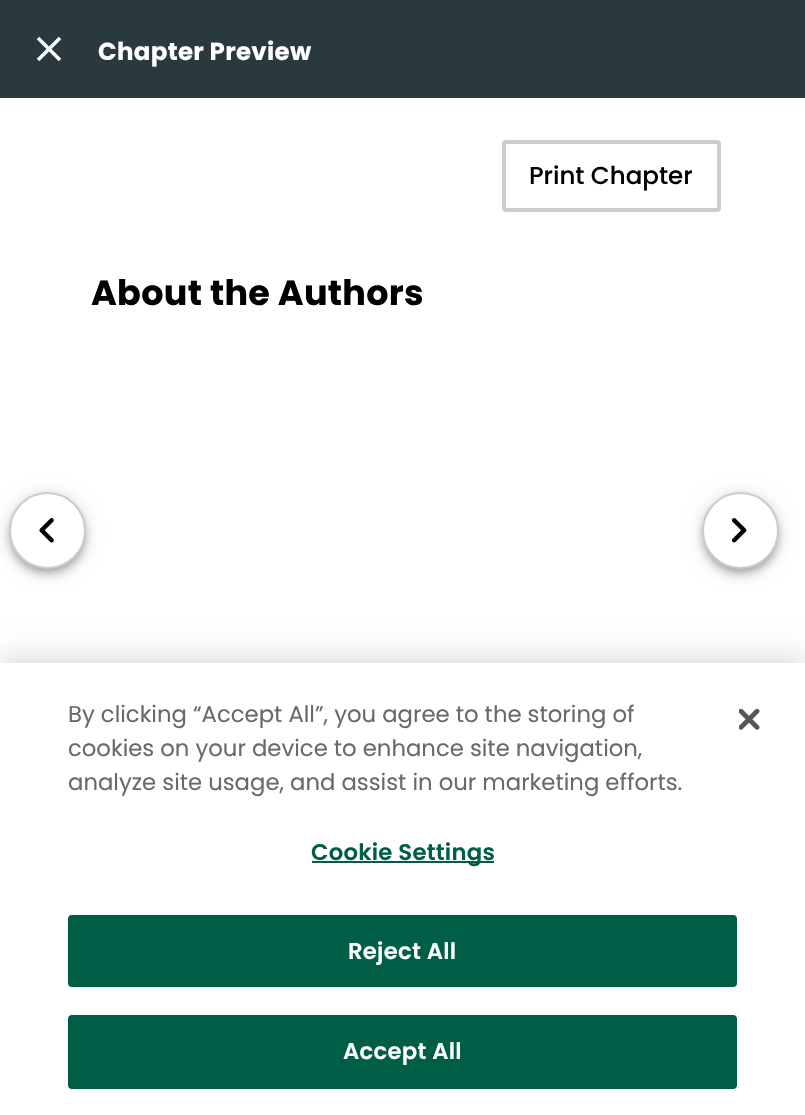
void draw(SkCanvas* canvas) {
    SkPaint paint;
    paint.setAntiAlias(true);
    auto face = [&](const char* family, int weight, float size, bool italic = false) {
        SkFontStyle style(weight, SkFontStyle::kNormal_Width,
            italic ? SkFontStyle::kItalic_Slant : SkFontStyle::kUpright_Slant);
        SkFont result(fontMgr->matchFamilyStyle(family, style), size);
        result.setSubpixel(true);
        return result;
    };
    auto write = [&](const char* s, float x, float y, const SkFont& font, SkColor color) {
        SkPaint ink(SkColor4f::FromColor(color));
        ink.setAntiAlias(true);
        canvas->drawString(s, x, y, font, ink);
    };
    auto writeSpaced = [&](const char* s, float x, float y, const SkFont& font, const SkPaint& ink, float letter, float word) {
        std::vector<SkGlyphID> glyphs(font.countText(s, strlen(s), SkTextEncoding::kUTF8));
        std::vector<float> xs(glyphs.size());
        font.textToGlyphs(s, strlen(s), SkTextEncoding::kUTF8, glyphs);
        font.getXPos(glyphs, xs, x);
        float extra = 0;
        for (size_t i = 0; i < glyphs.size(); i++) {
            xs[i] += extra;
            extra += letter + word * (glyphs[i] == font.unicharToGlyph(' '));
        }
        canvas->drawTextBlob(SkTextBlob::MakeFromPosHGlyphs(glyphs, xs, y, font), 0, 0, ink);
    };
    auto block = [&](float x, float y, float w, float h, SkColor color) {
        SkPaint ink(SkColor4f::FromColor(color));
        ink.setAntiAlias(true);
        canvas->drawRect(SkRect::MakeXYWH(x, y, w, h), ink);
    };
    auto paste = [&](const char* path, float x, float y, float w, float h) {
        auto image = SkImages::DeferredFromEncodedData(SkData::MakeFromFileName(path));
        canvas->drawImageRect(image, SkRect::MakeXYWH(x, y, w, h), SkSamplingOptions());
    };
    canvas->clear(SkColorSetRGB(42, 57, 62));
    paste("pic1.png", 36, 36, 26, 26);
    auto kFont1 = face("Poppins", 700, 24.5f);
    paint.setColor(SK_ColorWHITE);
    writeSpaced("Chapter Preview", 98, 60, kFont1, paint, 0.3f, 0);
    block(0, 98, 805, 565, SK_ColorWHITE);
    paint.setStyle(SkPaint::kStroke_Style);
    paint.setStrokeWidth(4);
    paint.setColor(SkColorSetRGB(204, 204, 204));
    canvas->drawRoundRect(SkRect::MakeXYWH(504, 142, 215, 68), 2, 2, paint);
    auto kFont2 = face("Poppins", 500, 24.5f);
    write("Print Chapter", 529, 184, kFont2, SK_ColorBLACK);
    auto kFont3 = face("Poppins", 700, 35);
    paint.setStyle(SkPaint::kFill_Style);
    paint.setColor(SK_ColorBLACK);
    writeSpaced("About the Authors", 91, 305, kFont3, paint, 0.3f, 0);
    paint.setColor(SkColorSetARGB(31, 0, 0, 0));
    paint.setMaskFilter(SkMaskFilter::MakeBlur(kNormal_SkBlurStyle, 9));
    canvas->drawRoundRect(SkRect::MakeXYWH(9, 494, 77, 77), 38.5f, 38.5f, paint);
    paint.setMaskFilter(nullptr);
    paint.setColor(SkColorSetARGB(36, 0, 0, 0));
    paint.setMaskFilter(SkMaskFilter::MakeBlur(kNormal_SkBlurStyle, 4.5f));
    canvas->drawRoundRect(SkRect::MakeXYWH(9, 499, 77, 77), 38.5f, 38.5f, paint);
    paint.setMaskFilter(nullptr);
    paint.setColor(SkColorSetARGB(51, 0, 0, 0));
    paint.setMaskFilter(SkMaskFilter::MakeBlur(kNormal_SkBlurStyle, 3.5f));
    canvas->drawRoundRect(SkRect::MakeXYWH(11, 497, 73, 74), 36.5f, 36.5f, paint);
    paint.setMaskFilter(nullptr);
    paint.setColor(SK_ColorWHITE);
    canvas->drawCircle(47.5f, 530.5f, 37.5f, paint);
    paint.setStyle(SkPaint::kStroke_Style);
    paint.setStrokeWidth(2);
    paint.setColor(SkColorSetRGB(197, 206, 209));
    canvas->drawCircle(47.5f, 530.5f, 37.5f, paint);
    paste("pic2.png", 39, 518, 15, 25);
    paint.setStyle(SkPaint::kFill_Style);
    paint.setColor(SkColorSetARGB(31, 0, 0, 0));
    paint.setMaskFilter(SkMaskFilter::MakeBlur(kNormal_SkBlurStyle, 9));
    canvas->drawRoundRect(SkRect::MakeXYWH(702, 494, 77, 77), 38.5f, 38.5f, paint);
    paint.setMaskFilter(nullptr);
    paint.setColor(SkColorSetARGB(36, 0, 0, 0));
    paint.setMaskFilter(SkMaskFilter::MakeBlur(kNormal_SkBlurStyle, 4.5f));
    canvas->drawRoundRect(SkRect::MakeXYWH(702, 499, 77, 77), 38.5f, 38.5f, paint);
    paint.setMaskFilter(nullptr);
    paint.setColor(SkColorSetARGB(51, 0, 0, 0));
    paint.setMaskFilter(SkMaskFilter::MakeBlur(kNormal_SkBlurStyle, 3.5f));
    canvas->drawRoundRect(SkRect::MakeXYWH(704, 497, 73, 74), 36.5f, 36.5f, paint);
    paint.setMaskFilter(nullptr);
    paint.setColor(SK_ColorWHITE);
    canvas->drawCircle(740.5f, 530.5f, 37.5f, paint);
    paint.setStyle(SkPaint::kStroke_Style);
    paint.setColor(SkColorSetRGB(197, 206, 209));
    canvas->drawCircle(740.5f, 530.5f, 37.5f, paint);
    paste("pic3.png", 732, 518, 15, 25);
    paint.setStyle(SkPaint::kFill_Style);
    paint.setColor(SkColorSetARGB(51, 0, 0, 0));
    paint.setMaskFilter(SkMaskFilter::MakeBlur(kNormal_SkBlurStyle, 16));
    canvas->drawRect(SkRect::MakeXYWH(0, 663, 805, 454), paint);
    paint.setMaskFilter(nullptr);
    block(0, 663, 805, 452, SK_ColorWHITE);
    auto kFont4 = face("Poppins", 400, 22.75f);
    write("By clicking “Accept All”, you agree to the storing of", 68, 722, kFont4, SkColorSetRGB(105, 105, 105));
    write("cookies on your device to enhance site navigation,", 68, 756, kFont4, SkColorSetRGB(105, 105, 105));
    write("analyze site usage, and assist in our marketing efforts.", 68, 790, kFont4, SkColorSetRGB(105, 105, 105));
    block(312, 861, 182, 2, SkColorSetRGB(0, 94, 71));
    auto kFont5 = face("Poppins", 600, 22.75f);
    paint.setColor(SkColorSetRGB(0, 94, 71));
    writeSpaced("Cookie Settings", 311, 860, kFont5, paint, 0.25f, 0);
    canvas->drawRoundRect(SkRect::MakeXYWH(69, 916, 667, 70), 3, 3, paint);
    paint.setStyle(SkPaint::kStroke_Style);
    canvas->drawRoundRect(SkRect::MakeXYWH(69, 916, 667, 70), 3, 3, paint);
    paint.setStyle(SkPaint::kFill_Style);
    paint.setColor(SK_ColorWHITE);
    writeSpaced("Reject All", 348, 959, kFont5, paint, 0.25f, 0);
    paint.setColor(SkColorSetRGB(0, 94, 71));
    canvas->drawRoundRect(SkRect::MakeXYWH(69, 1016, 667, 72), 3, 3, paint);
    paint.setStyle(SkPaint::kStroke_Style);
    canvas->drawRoundRect(SkRect::MakeXYWH(69, 1016, 667, 72), 3, 3, paint);
    paint.setStyle(SkPaint::kFill_Style);
    paint.setColor(SK_ColorWHITE);
    writeSpaced("Accept All", 343, 1059, kFont5, paint, 0.25f, 0);
    paste("pic4.png", 739, 709, 21, 21);
}
